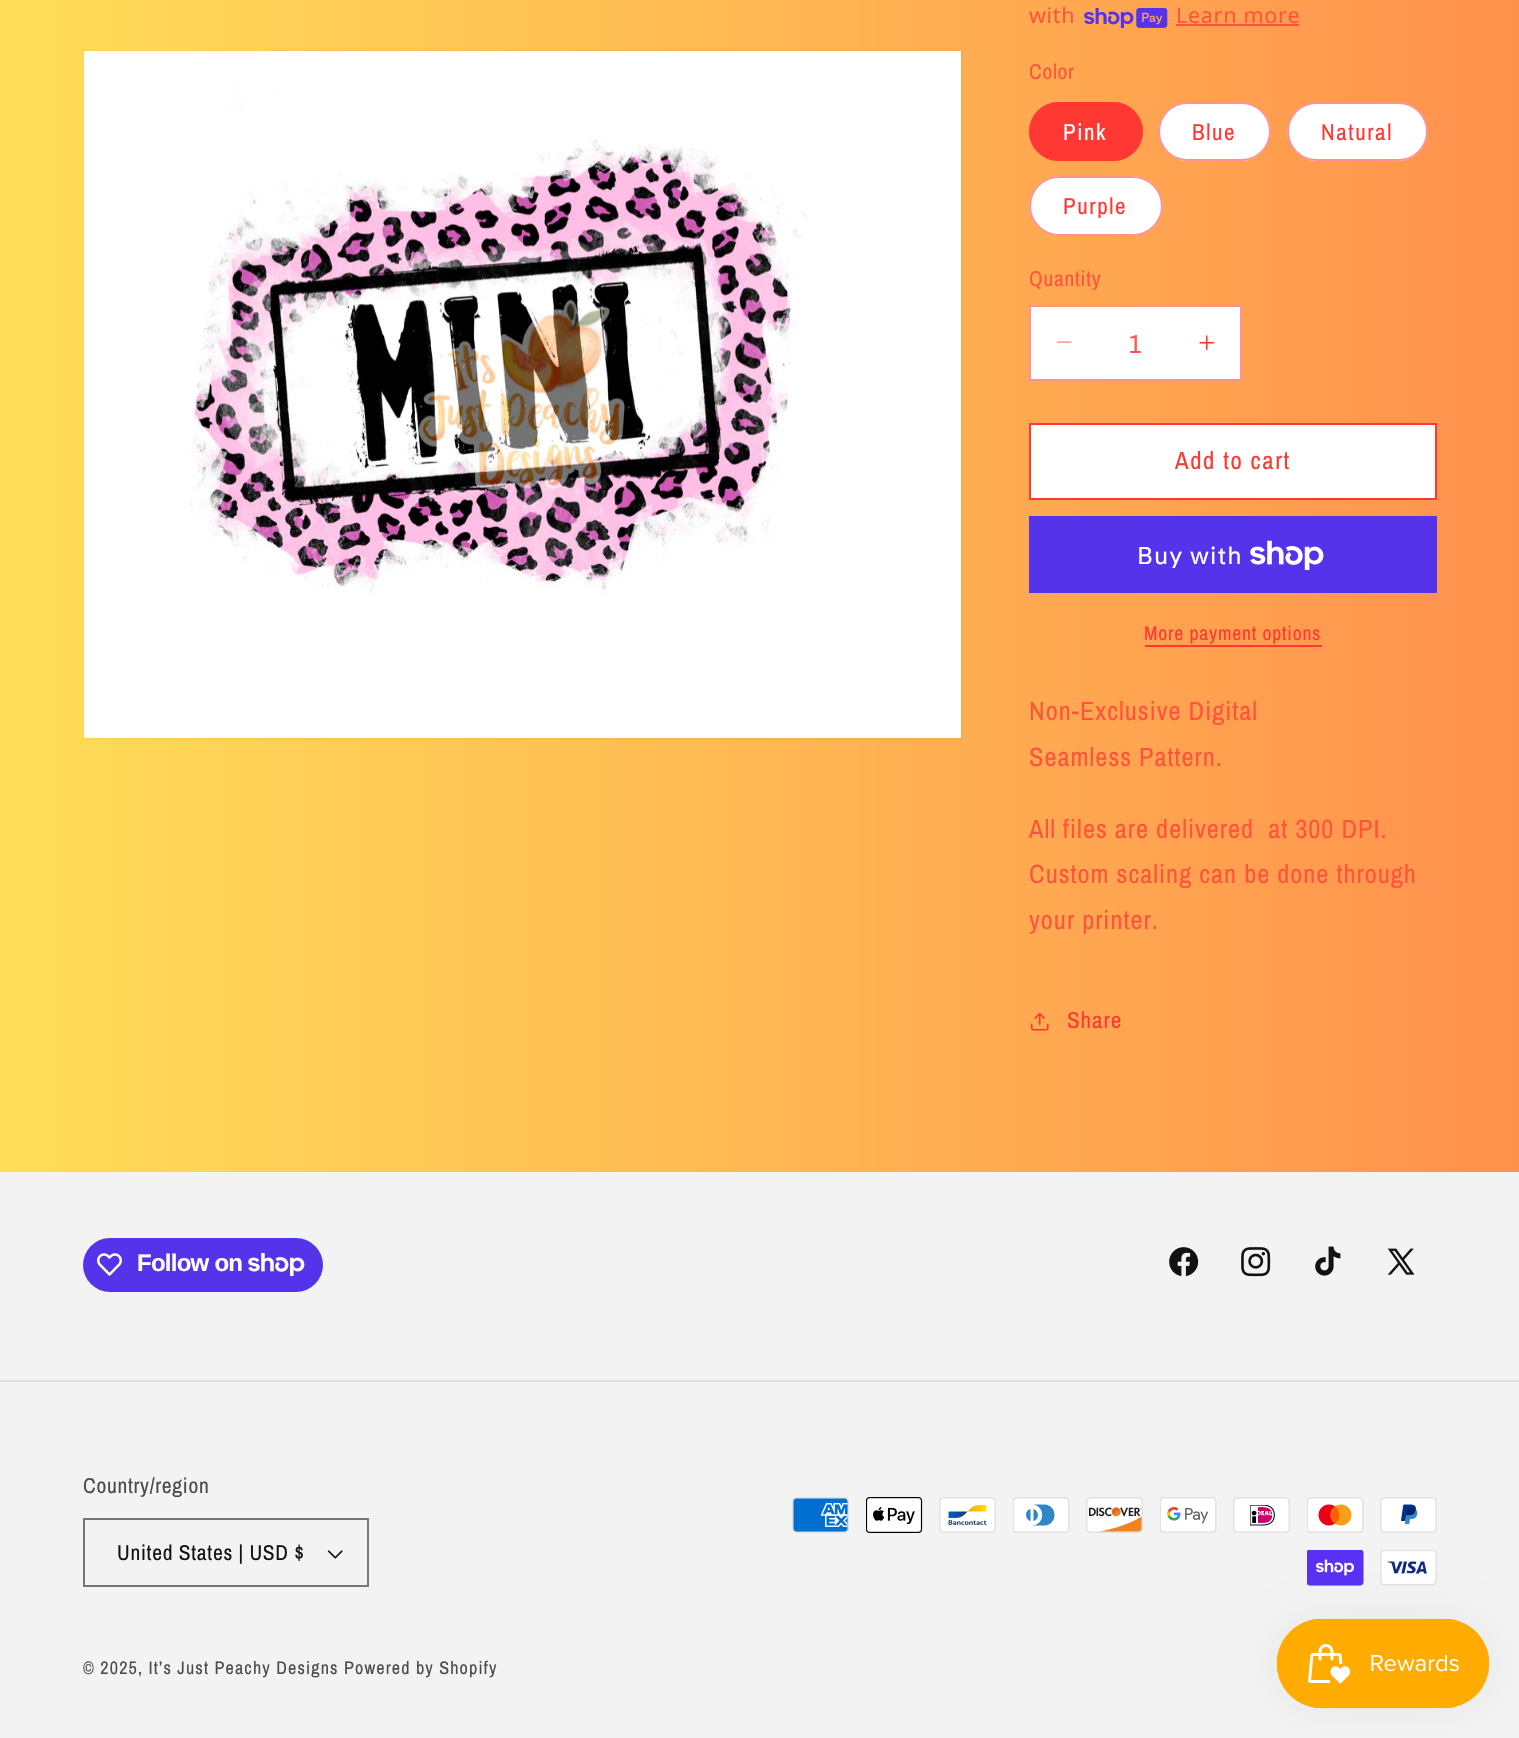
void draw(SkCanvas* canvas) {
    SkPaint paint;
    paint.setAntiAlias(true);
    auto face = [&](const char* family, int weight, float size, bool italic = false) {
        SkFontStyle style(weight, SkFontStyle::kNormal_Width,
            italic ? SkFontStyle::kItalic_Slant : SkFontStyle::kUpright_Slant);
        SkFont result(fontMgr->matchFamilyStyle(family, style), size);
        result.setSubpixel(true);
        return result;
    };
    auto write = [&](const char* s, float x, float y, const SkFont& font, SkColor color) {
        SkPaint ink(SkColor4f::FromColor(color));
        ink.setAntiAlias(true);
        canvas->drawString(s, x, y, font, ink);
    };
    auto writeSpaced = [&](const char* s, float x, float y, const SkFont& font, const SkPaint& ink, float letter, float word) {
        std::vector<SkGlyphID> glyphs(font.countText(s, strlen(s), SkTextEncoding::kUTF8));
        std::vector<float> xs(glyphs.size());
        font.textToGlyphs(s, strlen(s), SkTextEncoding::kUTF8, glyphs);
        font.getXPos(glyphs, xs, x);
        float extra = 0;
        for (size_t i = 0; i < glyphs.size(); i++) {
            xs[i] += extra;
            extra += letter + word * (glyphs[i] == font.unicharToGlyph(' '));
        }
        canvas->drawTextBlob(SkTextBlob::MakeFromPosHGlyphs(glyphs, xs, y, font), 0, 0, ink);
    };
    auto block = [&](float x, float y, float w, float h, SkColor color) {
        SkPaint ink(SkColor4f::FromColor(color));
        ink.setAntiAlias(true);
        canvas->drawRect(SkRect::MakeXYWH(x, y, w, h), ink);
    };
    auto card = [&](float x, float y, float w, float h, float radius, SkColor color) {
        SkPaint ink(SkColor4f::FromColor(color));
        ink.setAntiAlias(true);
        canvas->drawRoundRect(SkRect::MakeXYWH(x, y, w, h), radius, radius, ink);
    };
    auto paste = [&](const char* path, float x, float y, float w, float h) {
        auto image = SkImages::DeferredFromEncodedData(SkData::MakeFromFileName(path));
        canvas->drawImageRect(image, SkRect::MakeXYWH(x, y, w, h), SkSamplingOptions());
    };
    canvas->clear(SK_ColorWHITE);
    {
        const SkColor colors[] = {SkColorSetRGB(255, 222, 89), SkColorSetRGB(255, 145, 77)};
        const float stops[] = {0, 1};
        const SkPoint ends[] = {{0, 869}, {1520, 869}};
        paint.setShader(SkGradientShader::MakeLinear(ends, colors, stops, 2, SkTileMode::kClamp));
        paint.setAlpha(255);
    }
    canvas->drawRect(SkRect::MakeXYWH(0, 0, 1519, 1172), paint);
    {
        const SkColor colors[] = {SkColorSetRGB(255, 98, 61), SkColorSetRGB(255, 78, 58)};
        const float stops[] = {0, 1};
        const SkPoint ends[] = {{0, 869}, {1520, 869}};
        paint.setShader(SkGradientShader::MakeLinear(ends, colors, stops, 2, SkTileMode::kClamp));
        paint.setAlpha(255);
    }
    canvas->drawRect(SkRect::MakeXYWH(1176, 24, 123, 2), paint);
    paint.setStyle(SkPaint::kStroke_Style);
    paint.setStrokeWidth(2);
    paint.setShader(nullptr);
    paint.setColor(SkColorSetARGB(13, 255, 56, 51));
    canvas->drawRect(SkRect::MakeXYWH(84, 51, 878, 688), paint);
    paste("pic1.png", 84, 51, 877, 687);
    auto kFont1 = face("Noto Sans", 400, 21.5f);
    paint.setStyle(SkPaint::kFill_Style);
    paint.setColor(SkColorSetRGB(255, 84, 59));
    writeSpaced("with", 1029, 23, kFont1, paint, 0.7f, 0);
    paste("pic2.png", 1084, 8, 84, 21);
    writeSpaced("Learn more", 1176, 23, kFont1, paint, 0.7f, 0);
    auto kFont2 = face("Archivo Narrow", 400, 21.5f);
    writeSpaced("Color", 1029, 79, kFont2, paint, 0.7f, 0);
    card(1029, 102, 114, 59, 29.5f, SkColorSetRGB(255, 56, 51));
    paint.setStyle(SkPaint::kStroke_Style);
    paint.setColor(SkColorSetARGB(140, 255, 56, 51));
    canvas->drawRoundRect(SkRect::MakeXYWH(1030, 103, 112, 57), 28.5f, 28.5f, paint);
    auto kFont3 = face("Archivo Narrow", 400, 23);
    paint.setStyle(SkPaint::kFill_Style);
    paint.setColor(SK_ColorWHITE);
    writeSpaced("Pink", 1063, 140, kFont3, paint, 1.6f, 0);
    card(1158, 102, 113, 59, 29.5f, SK_ColorWHITE);
    paint.setStyle(SkPaint::kStroke_Style);
    paint.setColor(SkColorSetARGB(140, 255, 56, 51));
    canvas->drawRoundRect(SkRect::MakeXYWH(1159, 103, 111, 57), 28.5f, 28.5f, paint);
    paint.setStyle(SkPaint::kFill_Style);
    paint.setColor(SkColorSetRGB(255, 56, 51));
    writeSpaced("Blue", 1192, 140, kFont3, paint, 1.6f, 0);
    card(1287, 102, 141, 59, 29.5f, SK_ColorWHITE);
    paint.setStyle(SkPaint::kStroke_Style);
    paint.setColor(SkColorSetARGB(140, 255, 56, 51));
    canvas->drawRoundRect(SkRect::MakeXYWH(1288, 103, 139, 57), 28.5f, 28.5f, paint);
    paint.setStyle(SkPaint::kFill_Style);
    paint.setColor(SkColorSetRGB(255, 56, 51));
    writeSpaced("Natural", 1321, 140, kFont3, paint, 1.6f, 0);
    card(1029, 176, 134, 60, 30, SK_ColorWHITE);
    paint.setStyle(SkPaint::kStroke_Style);
    paint.setColor(SkColorSetARGB(140, 255, 56, 51));
    canvas->drawRoundRect(SkRect::MakeXYWH(1030, 177, 132, 58), 29, 29, paint);
    paint.setStyle(SkPaint::kFill_Style);
    paint.setColor(SkColorSetRGB(255, 56, 51));
    writeSpaced("Purple", 1063, 214, kFont3, paint, 1.6f, 0);
    paint.setColor(SkColorSetRGB(255, 84, 59));
    writeSpaced("Quantity", 1029, 286, kFont2, paint, 0.7f, 0);
    block(1031, 307, 209, 72, SK_ColorWHITE);
    paste("pic3.png", 1057, 341, 15, 2);
    paste("pic4.png", 1199, 335, 16, 16);
    paint.setStyle(SkPaint::kStroke_Style);
    paint.setColor(SkColorSetRGB(255, 146, 143));
    canvas->drawRect(SkRect::MakeXYWH(1030, 306, 211, 74), paint);
    auto kFont4 = face("Archivo Narrow", 400, 26.4f);
    write("1", 1129, 353, kFont4, SkColorSetRGB(255, 86, 82));
    block(1031, 425, 404, 73, SK_ColorWHITE);
    paint.setColor(SkColorSetRGB(255, 56, 51));
    canvas->drawRect(SkRect::MakeXYWH(1030, 424, 406, 75), paint);
    auto kFont5 = face("Archivo Narrow", 400, 24.75f);
    paint.setStyle(SkPaint::kFill_Style);
    writeSpaced("Add to cart", 1175, 469, kFont5, paint, 1.6f, 0);
    block(1029, 516, 408, 77, SkColorSetRGB(84, 51, 235));
    auto kFont6 = face("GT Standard", 400, 24);
    paint.setColor(SK_ColorWHITE);
    writeSpaced("Buy with", 1137, 564, kFont6, paint, 1, 0);
    paste("pic5.png", 1250, 540, 74, 30);
    auto kFont7 = face("Archivo Narrow", 400, 19.75f);
    paint.setColor(SkColorSetRGB(255, 56, 51));
    writeSpaced("More payment options", 1144, 640, kFont7, paint, 0.8f, 0);
    block(1145, 645, 177, 2, SkColorSetRGB(255, 56, 51));
    paint.setColor(SkColorSetRGB(255, 84, 59));
    writeSpaced("Non-Exclusive Digital", 1029, 720, kFont4, paint, 1, 0);
    writeSpaced("Seamless", 1029, 766, kFont4, paint, 1, 0);
    writeSpaced("Pattern.", 1139, 766, kFont4, paint, 1, 0);
    writeSpaced("All files are delivered  at 300 DPI.", 1029, 838, kFont4, paint, 1, 0);
    writeSpaced("Custom scaling can be done through", 1029, 883, kFont4, paint, 1, 0);
    writeSpaced("your printer.", 1029, 929, kFont4, paint, 1, 0);
    paste("pic6.png", 1030, 1012, 19, 19);
    paint.setColor(SkColorSetRGB(255, 56, 51));
    writeSpaced("Share", 1067, 1028, kFont3, paint, 1, 0);
    block(0, 1172, 1519, 566, SkColorSetRGB(243, 243, 243));
    card(83, 1238, 240, 54, 27, SkColorSetRGB(84, 51, 235));
    paste("pic7.png", 97, 1253, 25, 23);
    auto kFont8 = face("Liberation Sans", 700, 24);
    paint.setColor(SK_ColorWHITE);
    writeSpaced("Follow on", 137, 1271, kFont8, paint, -0.75f, 0);
    paste("pic8.png", 248, 1253, 57, 23);
    paste("pic9.png", 1169, 1247, 30, 30);
    paste("pic10.png", 1241, 1247, 30, 30);
    paste("pic11.png", 1315, 1246, 26, 30);
    paste("pic12.png", 1387, 1248, 28, 27);
    block(0, 1380, 1519, 2, SkColorSetRGB(225, 225, 225));
    paint.setColor(SkColorSetRGB(74, 74, 74));
    writeSpaced("Country/region", 83, 1493, kFont2, paint, 0.7f, 0);
    paste("pic13.png", 327, 1550, 16, 9);
    paint.setStyle(SkPaint::kStroke_Style);
    paint.setColor(SkColorSetRGB(119, 119, 119));
    canvas->drawRect(SkRect::MakeXYWH(84, 1519, 284, 67), paint);
    paint.setStyle(SkPaint::kFill_Style);
    paint.setColor(SkColorSetRGB(18, 18, 18));
    writeSpaced("United States | USD $", 117, 1560, kFont2, paint, 0.7f, 0);
    paste("pic14.png", 792, 1497, 57, 36);
    paste("pic15.png", 866, 1497, 57, 36);
    paste("pic16.png", 939, 1497, 57, 36);
    paste("pic17.png", 1013, 1497, 57, 36);
    paste("pic18.png", 1086, 1497, 57, 36);
    paste("pic19.png", 1160, 1497, 57, 36);
    paste("pic20.png", 1233, 1497, 57, 36);
    paste("pic21.png", 1307, 1497, 57, 36);
    paste("pic22.png", 1380, 1497, 57, 36);
    paste("pic23.png", 1307, 1550, 57, 36);
    paste("pic24.png", 1380, 1550, 57, 36);
    auto kFont9 = face("Archivo Narrow", 400, 18.1f);
    paint.setColor(SkColorSetRGB(74, 74, 74));
    writeSpaced("© 2025, It’s Just Peachy Designs", 83, 1674, kFont9, paint, 1.15f, 0);
    writeSpaced("Powered by Shopify", 344, 1674, kFont9, paint, 1.15f, 0);
    paint.setColor(SkColorSetARGB(13, 0, 0, 0));
    paint.setMaskFilter(SkMaskFilter::MakeBlur(kNormal_SkBlurStyle, 19));
    canvas->drawRoundRect(SkRect::MakeXYWH(1277, 1619, 213, 90), 45, 45, paint);
    paint.setMaskFilter(nullptr);
    paste("pic25.png", 1276, 1618, 214, 91);
}
